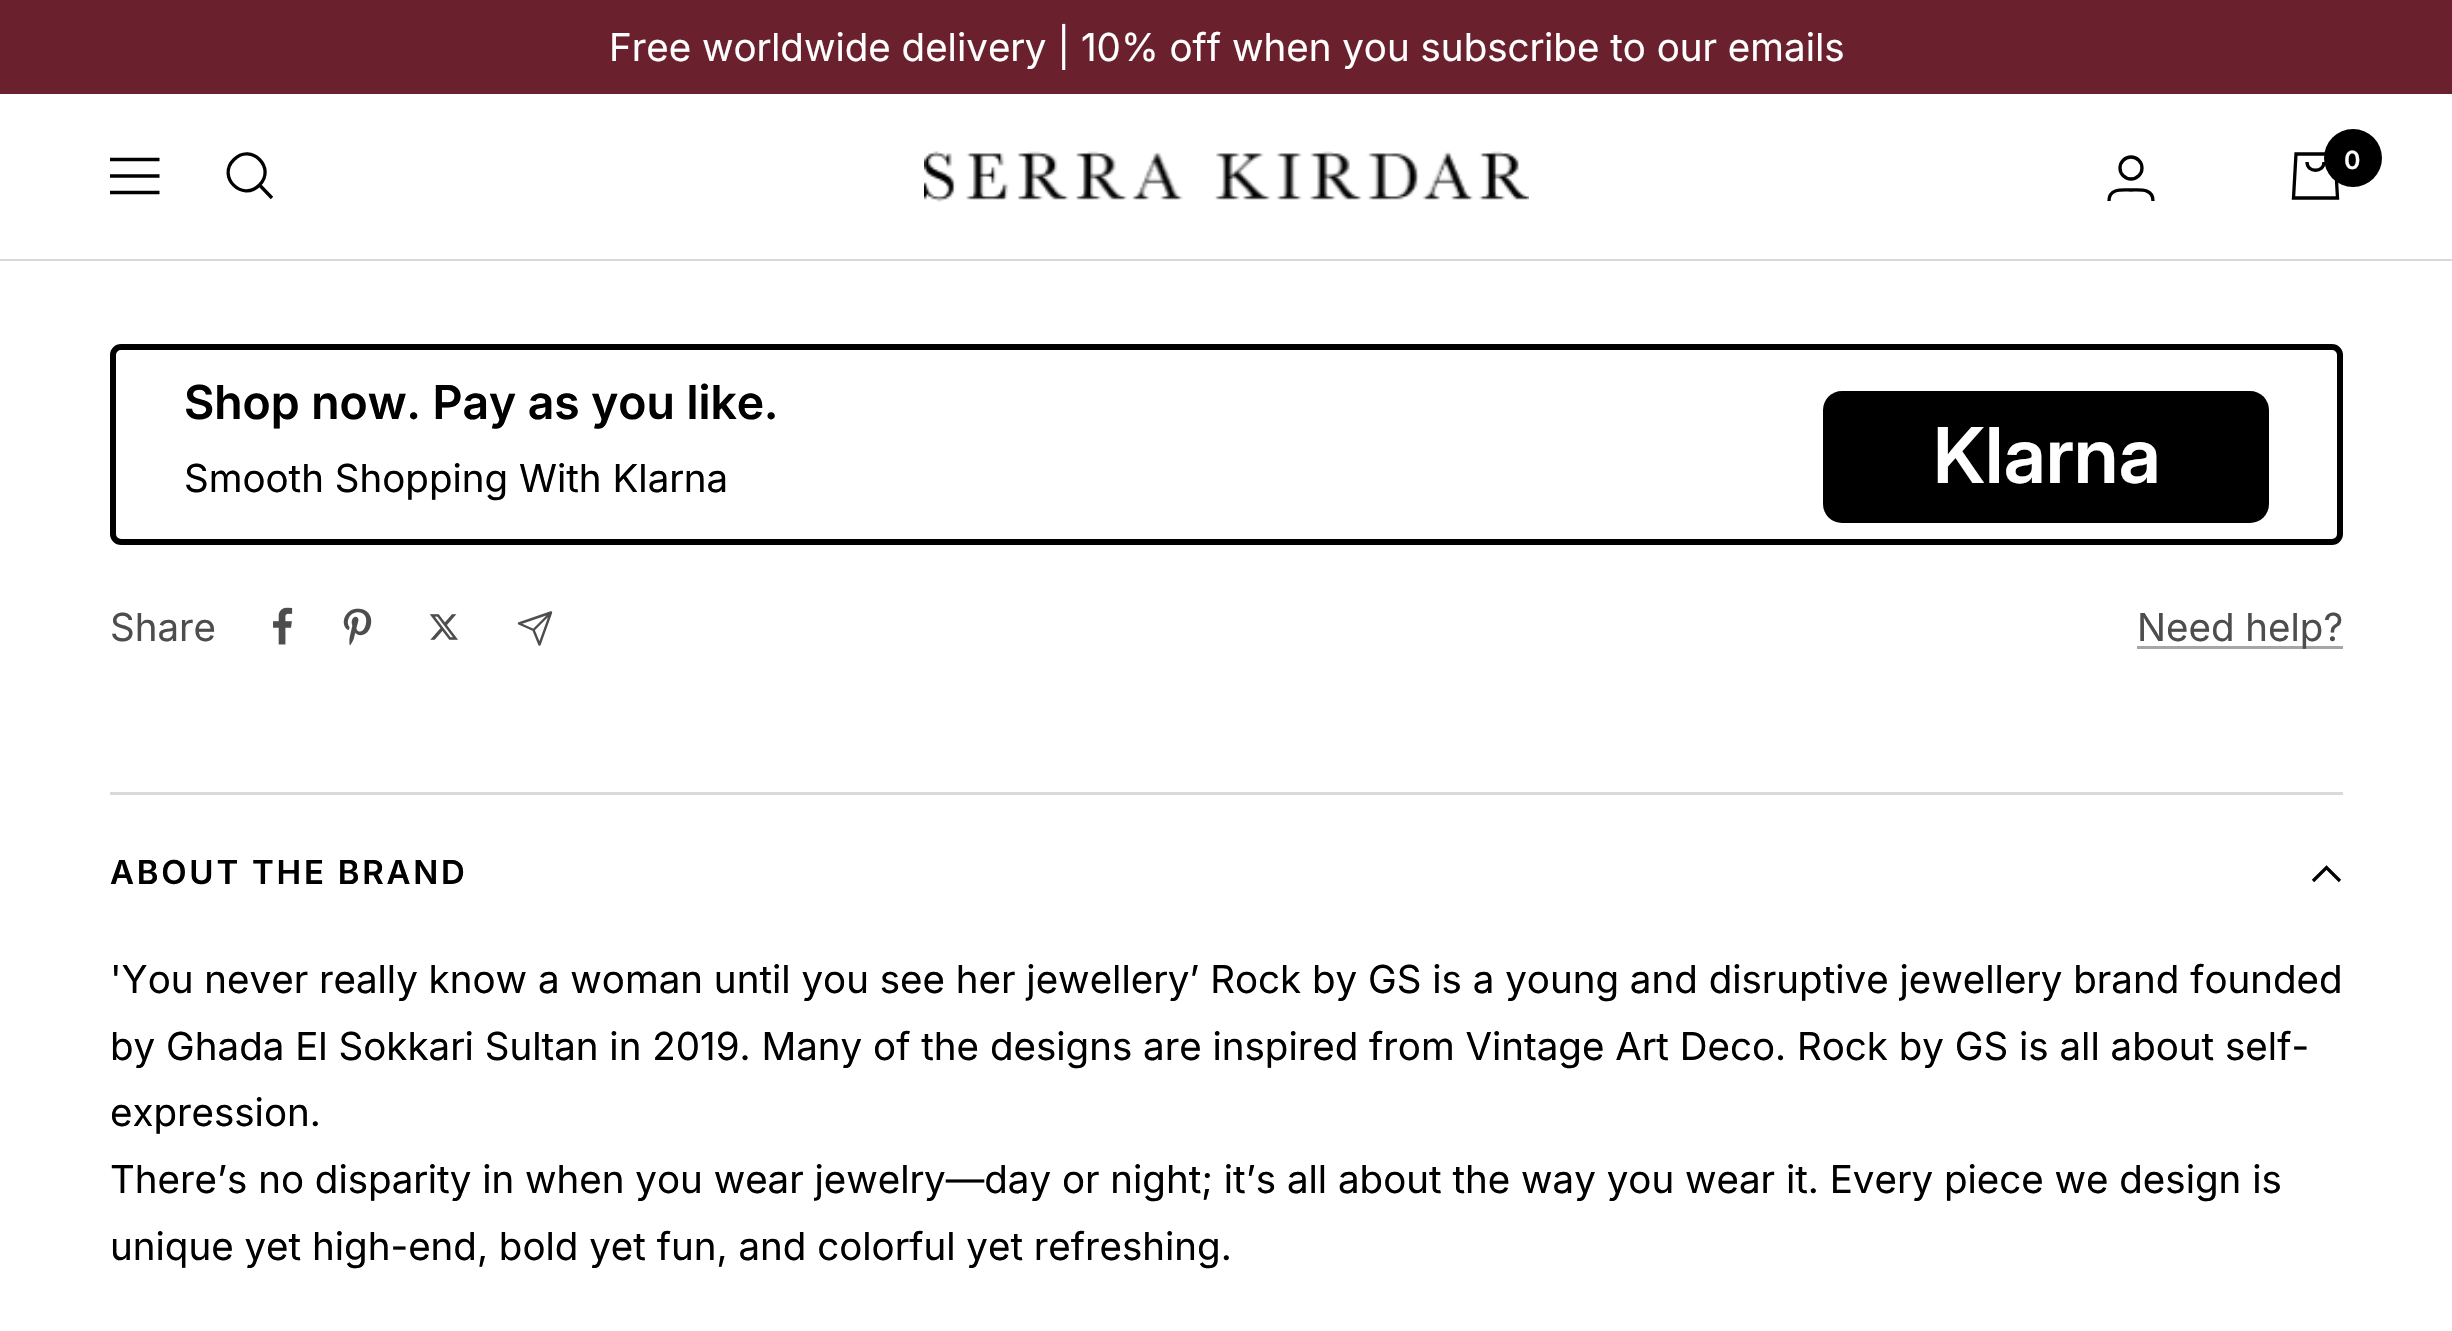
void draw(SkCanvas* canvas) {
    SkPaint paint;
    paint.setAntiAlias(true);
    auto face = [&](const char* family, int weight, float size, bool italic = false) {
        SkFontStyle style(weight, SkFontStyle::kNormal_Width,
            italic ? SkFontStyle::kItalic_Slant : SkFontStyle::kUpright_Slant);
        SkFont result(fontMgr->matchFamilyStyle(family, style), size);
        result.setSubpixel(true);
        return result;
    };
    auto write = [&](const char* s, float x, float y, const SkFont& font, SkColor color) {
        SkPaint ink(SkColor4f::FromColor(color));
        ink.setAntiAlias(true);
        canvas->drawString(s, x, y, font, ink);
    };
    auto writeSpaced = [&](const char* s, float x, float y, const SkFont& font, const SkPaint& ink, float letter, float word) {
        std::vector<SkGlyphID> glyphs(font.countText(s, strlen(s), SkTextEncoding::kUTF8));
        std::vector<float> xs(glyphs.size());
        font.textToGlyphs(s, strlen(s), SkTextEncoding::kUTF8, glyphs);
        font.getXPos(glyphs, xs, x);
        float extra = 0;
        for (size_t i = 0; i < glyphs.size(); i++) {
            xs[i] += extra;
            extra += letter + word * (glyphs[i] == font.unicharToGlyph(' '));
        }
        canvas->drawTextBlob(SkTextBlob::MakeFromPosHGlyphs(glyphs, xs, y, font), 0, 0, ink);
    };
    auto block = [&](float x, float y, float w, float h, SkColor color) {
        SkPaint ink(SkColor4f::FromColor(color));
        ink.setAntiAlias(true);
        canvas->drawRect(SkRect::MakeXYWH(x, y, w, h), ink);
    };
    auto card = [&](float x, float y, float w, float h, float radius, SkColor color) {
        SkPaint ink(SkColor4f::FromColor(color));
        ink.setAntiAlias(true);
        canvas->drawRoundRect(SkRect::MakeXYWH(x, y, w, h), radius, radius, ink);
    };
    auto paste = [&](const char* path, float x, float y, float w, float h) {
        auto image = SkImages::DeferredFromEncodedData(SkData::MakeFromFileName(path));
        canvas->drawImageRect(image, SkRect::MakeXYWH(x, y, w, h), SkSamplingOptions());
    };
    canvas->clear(SK_ColorWHITE);
    block(0, 0, 2452, 94, SkColorSetRGB(107, 32, 45));
    auto kFont1 = face("Inter", 400, 38.5f);
    write("Free worldwide delivery | 10% off when you subscribe to our emails", 609, 61, kFont1, SK_ColorWHITE);
    block(0, 259, 2452, 2, SkColorSetRGB(217, 217, 217));
    paint.setStyle(SkPaint::kStroke_Style);
    paint.setStrokeWidth(3.3f);
    paint.setColor(SK_ColorBLACK);
    canvas->drawPath(SkPathBuilder().moveTo(110, 159.5f).lineTo(159.5f, 159.5f).moveTo(110, 192.5f).lineTo(159.5f, 192.5f).close().moveTo(110, 176).lineTo(159.5f, 176).close().detach(), paint);
    canvas->drawPath(SkPathBuilder().moveTo(259.5f, 185).cubicTo(276.5f, 168, 251, 142.5f, 234, 159.5f).cubicTo(216.5f, 176.5f, 242, 202.5f, 259.5f, 185).close().moveTo(259.5f, 185).lineTo(272, 198).detach(), paint);
    paste("pic1.png", 924, 151, 605, 51);
    canvas->drawCircle(2131, 168, 11, paint);
    canvas->drawPath(SkPathBuilder().moveTo(2109, 201).cubicTo(2109, 188, 2122.5f, 190, 2131, 190).cubicTo(2140, 190, 2153, 188, 2153, 201).detach(), paint);
    canvas->drawPath(SkPathBuilder().moveTo(2296, 154).lineTo(2335, 154).lineTo(2337.5f, 198).lineTo(2293.5f, 198).close().moveTo(2307, 162).cubicTo(2307, 173, 2324, 173, 2324, 162).detach(), paint);
    paint.setStyle(SkPaint::kFill_Style);
    canvas->drawCircle(2353, 158, 29, paint);
    auto kFont2 = face("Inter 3", 600, 25);
    write("0", 2344, 169, kFont2, SK_ColorWHITE);
    paint.setStyle(SkPaint::kStroke_Style);
    paint.setStrokeWidth(6);
    canvas->drawRoundRect(SkRect::MakeXYWH(113, 347, 2227, 195), 8, 8, paint);
    auto kFont3 = face("Inter", 600, 46.75f);
    write("Shop now. Pay as you like.", 184, 419, kFont3, SK_ColorBLACK);
    write("Smooth Shopping With Klarna", 184, 492, kFont1, SK_ColorBLACK);
    card(1823, 391, 446, 132, 19, SK_ColorBLACK);
    auto kFont4 = face("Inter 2", 600, 77);
    write("Klarna", 1933, 483, kFont4, SK_ColorWHITE);
    write("Share", 110, 641, kFont1, SkColorSetRGB(77, 77, 77));
    paste("pic2.png", 273, 607, 20, 38);
    paste("pic3.png", 343, 608, 29, 38);
    paste("pic4.png", 429, 614, 29, 26);
    paint.setStrokeWidth(2.4f);
    paint.setStrokeCap(SkPaint::kRound_Cap);
    paint.setStrokeJoin(SkPaint::kRound_Join);
    paint.setColor(SkColorSetRGB(77, 77, 77));
    canvas->drawPath(SkPathBuilder().moveTo(551, 612.5f).lineTo(539.5f, 644.5f).lineTo(533.5f, 630).moveTo(551, 612.5f).lineTo(519, 623.5f).lineTo(533.5f, 630).moveTo(551, 612.5f).lineTo(533.5f, 630).detach(), paint);
    block(2137, 646, 206, 3, SkColorSetRGB(166, 166, 166));
    write("Need help?", 2137, 641, kFont1, SkColorSetRGB(77, 77, 77));
    block(110, 792, 2233, 3, SkColorSetRGB(217, 217, 217));
    auto kFont5 = face("Inter 3", 600, 33);
    paint.setStyle(SkPaint::kFill_Style);
    paint.setColor(SK_ColorBLACK);
    writeSpaced("ABOUT THE BRAND", 110, 884, kFont5, paint, 2.75f, 0);
    paint.setStyle(SkPaint::kStroke_Style);
    paint.setStrokeWidth(3.3f);
    paint.setStrokeCap(SkPaint::kButt_Cap);
    paint.setStrokeJoin(SkPaint::kMiter_Join);
    canvas->drawPath(SkPathBuilder().moveTo(2340, 881).lineTo(2326.5f, 867.5f).lineTo(2313, 881).detach(), paint);
    write("'You never really know a woman until you see her jewellery’ Rock by GS is a young and disruptive jewellery brand founded", 110, 993, kFont1, SK_ColorBLACK);
    write("by Ghada El Sokkari Sultan in 2019. Many of the designs are inspired from Vintage Art Deco. Rock by GS is all about self-", 110, 1060, kFont1, SK_ColorBLACK);
    write("expression.", 110, 1126, kFont1, SK_ColorBLACK);
    write("There’s no disparity in when you wear jewelry—day or night; it’s all about the way you wear it. Every piece we design is", 110, 1193, kFont1, SK_ColorBLACK);
    write("unique yet high-end, bold yet fun, and colorful yet refreshing.", 110, 1260, kFont1, SK_ColorBLACK);
}
